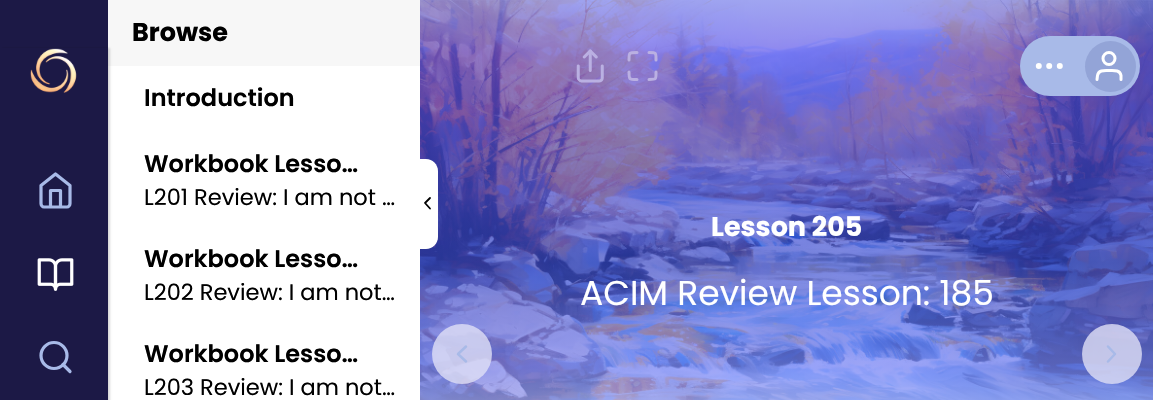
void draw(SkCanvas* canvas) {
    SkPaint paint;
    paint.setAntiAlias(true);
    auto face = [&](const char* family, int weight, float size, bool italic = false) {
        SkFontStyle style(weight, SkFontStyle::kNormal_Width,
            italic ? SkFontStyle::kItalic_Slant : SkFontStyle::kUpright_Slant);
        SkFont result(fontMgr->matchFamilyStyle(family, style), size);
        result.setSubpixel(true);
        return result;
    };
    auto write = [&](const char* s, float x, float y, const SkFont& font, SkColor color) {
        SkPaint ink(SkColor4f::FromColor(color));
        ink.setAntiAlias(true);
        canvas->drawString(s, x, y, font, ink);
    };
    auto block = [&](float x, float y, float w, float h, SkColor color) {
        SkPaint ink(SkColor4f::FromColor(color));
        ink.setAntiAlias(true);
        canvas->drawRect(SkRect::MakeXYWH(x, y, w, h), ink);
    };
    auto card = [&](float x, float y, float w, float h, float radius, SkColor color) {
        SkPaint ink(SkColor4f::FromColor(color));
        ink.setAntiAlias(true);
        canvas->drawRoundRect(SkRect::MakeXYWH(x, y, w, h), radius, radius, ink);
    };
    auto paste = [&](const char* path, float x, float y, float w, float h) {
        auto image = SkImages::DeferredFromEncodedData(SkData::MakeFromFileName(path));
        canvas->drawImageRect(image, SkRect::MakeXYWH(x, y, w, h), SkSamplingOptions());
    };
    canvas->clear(SK_ColorWHITE);
    block(0, 0, 108, 400, SkColorSetRGB(28, 25, 70));
    block(108, 0, 312, 66, SkColorSetRGB(247, 247, 247));
    canvas->save();
    canvas->clipPath(SkPathBuilder(SkPathFillType::kEvenOdd).moveTo(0, 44).lineTo(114, 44).lineTo(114, 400).lineTo(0, 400).close().moveTo(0, 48).lineTo(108, 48).lineTo(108, 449).lineTo(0, 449).close().detach(), true);
    paint.setColor(SkColorSetARGB(38, 0, 0, 0));
    paint.setMaskFilter(SkMaskFilter::MakeBlur(kNormal_SkBlurStyle, 1));
    canvas->drawRect(SkRect::MakeXYWH(2, 48, 108, 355), paint);
    paint.setMaskFilter(nullptr);
    canvas->restore();
    paste("pic1.png", 30, 48, 47, 45);
    paint.setStyle(SkPaint::kStroke_Style);
    paint.setStrokeWidth(3.2f);
    paint.setStrokeCap(SkPaint::kRound_Cap);
    paint.setStrokeJoin(SkPaint::kRound_Join);
    paint.setColor(SkColorSetRGB(168, 186, 232));
    canvas->drawPath(SkPathBuilder().moveTo(41, 185.5f).lineTo(55.5f, 174).lineTo(70, 185.5f).lineTo(70, 203.5f).cubicTo(70, 205.5f, 68.5f, 207, 67, 207).lineTo(44, 207).cubicTo(42.5f, 207, 41, 205.5f, 41, 203.5f).close().moveTo(50.5f, 207).lineTo(50.5f, 190.5f).lineTo(60.5f, 190.5f).lineTo(60.5f, 207).detach(), paint);
    paste("pic2.png", 37, 258, 37, 33);
    paint.setStrokeCap(SkPaint::kButt_Cap);
    paint.setStrokeJoin(SkPaint::kMiter_Join);
    canvas->drawCircle(54, 355.5f, 13, paint);
    paint.setStrokeCap(SkPaint::kRound_Cap);
    paint.setStrokeJoin(SkPaint::kRound_Join);
    canvas->drawPath(SkPathBuilder().moveTo(70, 371.5f).lineTo(63, 364.5f).detach(), paint);
    auto kFont1 = face("Poppins", 700, 25.5f);
    write("Browse", 132, 41, kFont1, SK_ColorBLACK);
    paste("pic4.png", 420, 0, 733, 400);
    paint.setStyle(SkPaint::kFill_Style);
    paint.setColor(SK_ColorWHITE);
    canvas->drawPath(SkPathBuilder().moveTo(417, 159).lineTo(426, 159).cubicTo(432.5f, 159, 438, 164.5f, 438, 171).lineTo(438, 237).cubicTo(438, 243.5f, 432.5f, 249, 426, 249).lineTo(417, 249).close().detach(), paint);
    paint.setStyle(SkPaint::kStroke_Style);
    paint.setStrokeWidth(1.8f);
    paint.setColor(SK_ColorBLACK);
    canvas->drawPath(SkPathBuilder().moveTo(430, 208.5f).lineTo(425, 203).lineTo(430, 198).detach(), paint);
    auto kFont2 = face("Poppins", 600, 24);
    write("Introduction", 144, 106, kFont2, SK_ColorBLACK);
    write("Workbook Lesso…", 144, 172, kFont2, SK_ColorBLACK);
    auto kFont3 = face("Poppins", 400, 22.5f);
    write("L201 Review: I am not …", 144, 205, kFont3, SK_ColorBLACK);
    write("Workbook Lesso…", 144, 267, kFont2, SK_ColorBLACK);
    write("L202 Review: I am not…", 144, 300, kFont3, SK_ColorBLACK);
    write("Workbook Lesso…", 144, 362, kFont2, SK_ColorBLACK);
    write("L203 Review: I am not…", 144, 395, kFont3, SK_ColorBLACK);
    paste("pic3.png", 576, 49, 28, 34);
    paint.setStrokeWidth(3);
    paint.setColor(SkColorSetRGB(186, 176, 226));
    canvas->drawPath(SkPathBuilder().moveTo(637, 52.5f).cubicTo(629, 52.5f, 629, 52.5f, 629, 60).moveTo(656, 60).cubicTo(656, 52.5f, 656.5f, 52.5f, 649, 52.5f).moveTo(649, 79.5f).cubicTo(656.5f, 79.5f, 656, 79.5f, 656, 72).moveTo(629, 72).cubicTo(629, 79.5f, 629, 79.5f, 637, 79.5f).detach(), paint);
    card(1020, 36, 120, 60, 30, SkColorSetRGB(168, 186, 232));
    paint.setStrokeCap(SkPaint::kButt_Cap);
    paint.setStrokeJoin(SkPaint::kMiter_Join);
    paint.setColor(SK_ColorWHITE);
    canvas->drawCircle(1049.2f, 66, 1.5f, paint);
    canvas->drawCircle(1059.8f, 66, 1.5f, paint);
    canvas->drawCircle(1038.8f, 66, 1.5f, paint);
    paint.setStyle(SkPaint::kFill_Style);
    paint.setColor(SkColorSetRGB(147, 164, 215));
    canvas->drawCircle(1110.5f, 66.5f, 25.5f, paint);
    paint.setStyle(SkPaint::kStroke_Style);
    paint.setStrokeCap(SkPaint::kRound_Cap);
    paint.setStrokeJoin(SkPaint::kRound_Join);
    paint.setColor(SK_ColorWHITE);
    canvas->drawPath(SkPathBuilder().moveTo(1121, 79.5f).lineTo(1121, 75.5f).cubicTo(1120, 69.5f, 1113.5f, 70.5f, 1109, 70.5f).cubicTo(1105, 70.5f, 1098.5f, 69.5f, 1097.5f, 75.5f).lineTo(1097, 79.5f).detach(), paint);
    paint.setStrokeCap(SkPaint::kButt_Cap);
    paint.setStrokeJoin(SkPaint::kMiter_Join);
    canvas->drawCircle(1109, 58.5f, 6, paint);
    auto kFont4 = face("Poppins", 700, 27);
    write("Lesson 205", 711, 236, kFont4, SK_ColorWHITE);
    auto kFont5 = face("Poppins", 400, 34.5f);
    write("ACIM Review Lesson: 185", 580, 305, kFont5, SK_ColorWHITE);
    paint.setStyle(SkPaint::kFill_Style);
    paint.setColor(SkColorSetARGB(201, 224, 225, 246));
    canvas->drawCircle(462, 354, 30, paint);
    paint.setStyle(SkPaint::kStroke_Style);
    paint.setStrokeWidth(2.5f);
    paint.setStrokeCap(SkPaint::kRound_Cap);
    paint.setStrokeJoin(SkPaint::kRound_Join);
    paint.setColor(SkColorSetRGB(168, 186, 232));
    canvas->drawPath(SkPathBuilder().moveTo(466, 361.5f).lineTo(458, 354).lineTo(466, 346.5f).detach(), paint);
    paint.setStyle(SkPaint::kFill_Style);
    paint.setColor(SkColorSetARGB(201, 224, 225, 246));
    canvas->drawCircle(1112, 354, 30, paint);
    paint.setStyle(SkPaint::kStroke_Style);
    paint.setColor(SkColorSetRGB(168, 186, 232));
    canvas->drawPath(SkPathBuilder().moveTo(1108, 361.5f).lineTo(1115, 354).lineTo(1108, 346.5f).detach(), paint);
}
